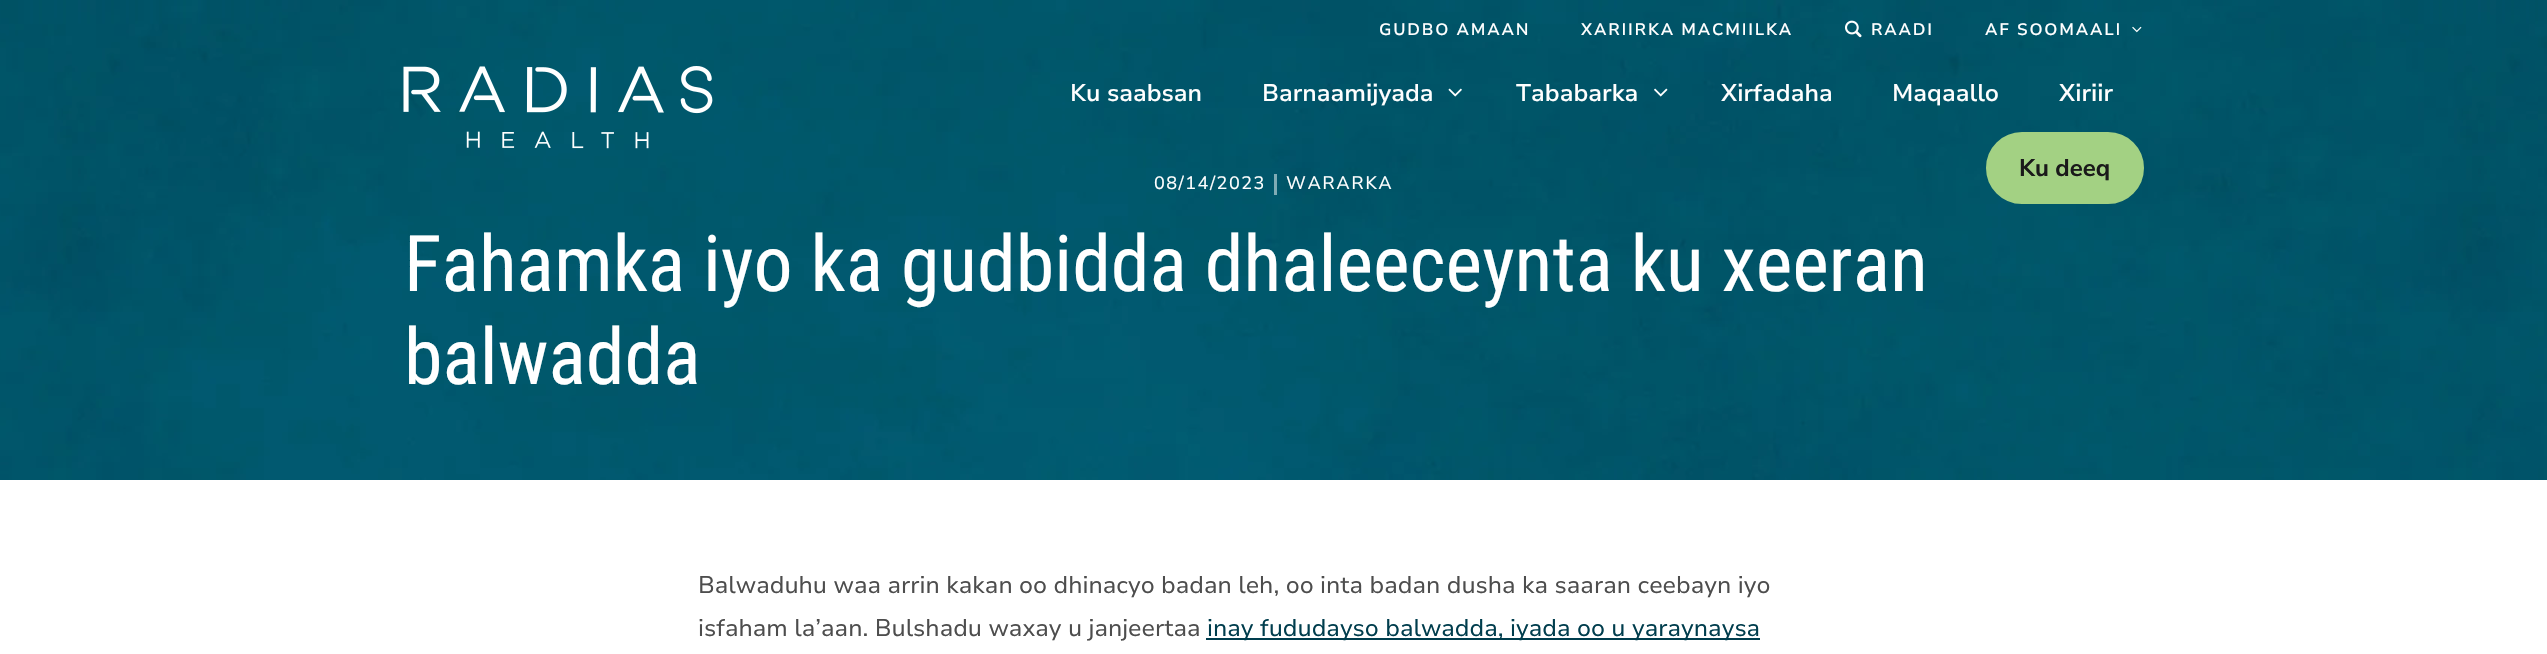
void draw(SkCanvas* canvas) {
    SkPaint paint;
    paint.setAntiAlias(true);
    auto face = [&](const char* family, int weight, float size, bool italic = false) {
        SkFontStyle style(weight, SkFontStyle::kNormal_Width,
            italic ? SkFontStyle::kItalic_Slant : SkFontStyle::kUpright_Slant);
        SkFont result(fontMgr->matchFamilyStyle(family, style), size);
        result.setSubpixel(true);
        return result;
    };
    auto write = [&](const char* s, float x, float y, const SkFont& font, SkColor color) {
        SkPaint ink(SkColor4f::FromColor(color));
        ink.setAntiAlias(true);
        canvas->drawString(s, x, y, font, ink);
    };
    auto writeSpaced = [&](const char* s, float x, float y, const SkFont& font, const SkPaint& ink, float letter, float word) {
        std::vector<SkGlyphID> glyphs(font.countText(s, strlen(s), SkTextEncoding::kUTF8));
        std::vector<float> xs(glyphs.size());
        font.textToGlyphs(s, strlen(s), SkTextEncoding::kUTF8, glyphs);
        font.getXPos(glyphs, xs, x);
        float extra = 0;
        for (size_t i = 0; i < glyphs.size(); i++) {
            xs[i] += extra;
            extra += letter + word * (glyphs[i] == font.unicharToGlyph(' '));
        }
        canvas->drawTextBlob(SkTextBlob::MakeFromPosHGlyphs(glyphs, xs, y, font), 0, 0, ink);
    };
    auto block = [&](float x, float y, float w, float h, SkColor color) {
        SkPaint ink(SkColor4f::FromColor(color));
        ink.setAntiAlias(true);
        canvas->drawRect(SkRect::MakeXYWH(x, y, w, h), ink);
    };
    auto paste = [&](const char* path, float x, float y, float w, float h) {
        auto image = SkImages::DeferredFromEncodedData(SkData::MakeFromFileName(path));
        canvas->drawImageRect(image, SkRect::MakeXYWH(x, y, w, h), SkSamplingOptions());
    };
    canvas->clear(SK_ColorWHITE);
    paste("pic6.png", 0, 0, 2547, 480);
    paste("pic1.png", 403, 66, 310, 83);
    auto kFont1 = face("Nunito Sans", 600, 16.5f);
    paint.setColor(SK_ColorWHITE);
    writeSpaced("GUDBO AMAAN", 1379, 35, kFont1, paint, 1.8f, 0);
    writeSpaced("XARIIRKA MACMIILKA", 1581, 35, kFont1, paint, 1.8f, 0);
    paste("pic2.png", 1845, 20, 17, 18);
    writeSpaced("RAADI", 1871, 35, kFont1, paint, 1.8f, 0);
    writeSpaced("AF SOOMAALI", 1985, 35, kFont1, paint, 1.8f, 0);
    paste("pic3.png", 2132, 26, 10, 7);
    auto kFont2 = face("Nunito Sans", 600, 24);
    write("Ku saabsan", 1070, 101, kFont2, SK_ColorWHITE);
    write("Barnaamijyada", 1262, 101, kFont2, SK_ColorWHITE);
    paste("pic4.png", 1448, 88, 14, 9);
    write("Tababarka", 1516, 101, kFont2, SK_ColorWHITE);
    paste("pic5.png", 1654, 88, 14, 9);
    write("Xirfadaha", 1721, 101, kFont2, SK_ColorWHITE);
    write("Maqaallo", 1892, 101, kFont2, SK_ColorWHITE);
    write("Xiriir", 2059, 101, kFont2, SK_ColorWHITE);
    paint.setColor(SkColorSetRGB(163, 209, 131));
    canvas->drawRoundRect(SkRect::MakeXYWH(1987.5f, 133.5f, 155, 69), 34.5f, 34.5f, paint);
    paint.setStyle(SkPaint::kStroke_Style);
    paint.setStrokeWidth(3);
    canvas->drawRoundRect(SkRect::MakeXYWH(1987.5f, 133.5f, 155, 69), 34.5f, 34.5f, paint);
    auto kFont3 = face("Nunito Sans", 700, 24);
    write("Ku deeq", 2019, 176, kFont3, SkColorSetRGB(26, 26, 26));
    auto kFont4 = face("Nunito Sans", 400, 18);
    paint.setStyle(SkPaint::kFill_Style);
    paint.setColor(SK_ColorWHITE);
    writeSpaced("08/14/2023", 1154, 189, kFont4, paint, 1.5f, 0);
    block(1274, 174, 3, 21, SkColorSetRGB(128, 171, 181));
    writeSpaced("WARARKA", 1286, 189, kFont4, paint, 1.5f, 0);
    auto kFont5 = face("Roboto Condensed", 400, 78);
    write("Fahamka iyo ka gudbidda dhaleeceynta ku xeeran", 404, 291, kFont5, SK_ColorWHITE);
    write("balwadda", 404, 384, kFont5, SK_ColorWHITE);
    auto kFont6 = face("Nunito Sans", 400, 24);
    write("Balwaduhu waa arrin kakan oo dhinacyo badan leh, oo inta badan dusha ka saaran ceebayn iyo", 698, 593, kFont6, SkColorSetRGB(77, 77, 77));
    write("isfaham la’aan. Bulshadu waxay u janjeertaa", 698, 636, kFont6, SkColorSetRGB(77, 77, 77));
    block(1206, 638, 554, 2, SkColorSetRGB(0, 61, 77));
    write("inay fududayso balwadda, iyada oo u yaraynaysa", 1207, 636, kFont6, SkColorSetRGB(0, 61, 77));
}
